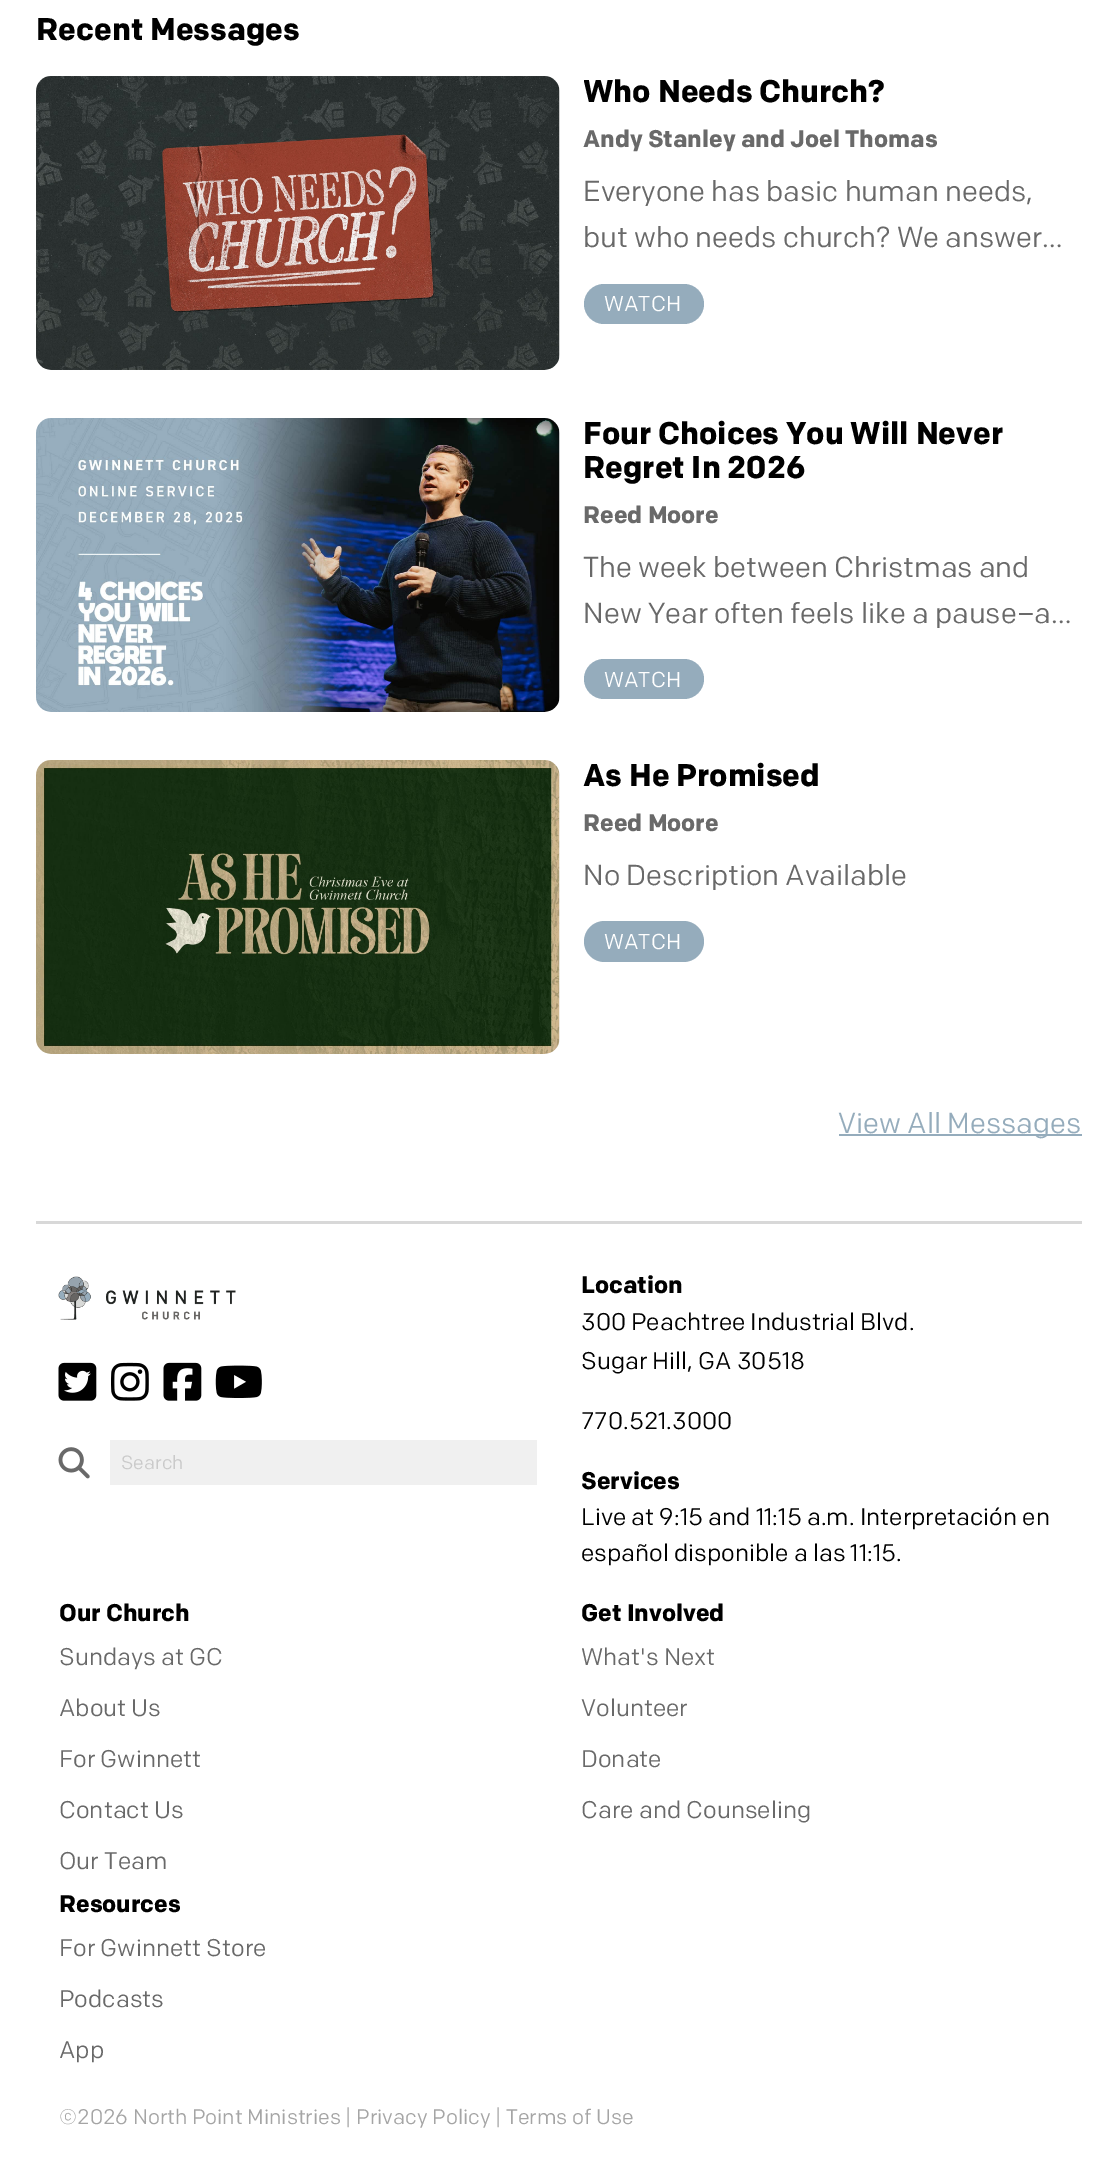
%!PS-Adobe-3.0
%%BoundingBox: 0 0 1117 2170
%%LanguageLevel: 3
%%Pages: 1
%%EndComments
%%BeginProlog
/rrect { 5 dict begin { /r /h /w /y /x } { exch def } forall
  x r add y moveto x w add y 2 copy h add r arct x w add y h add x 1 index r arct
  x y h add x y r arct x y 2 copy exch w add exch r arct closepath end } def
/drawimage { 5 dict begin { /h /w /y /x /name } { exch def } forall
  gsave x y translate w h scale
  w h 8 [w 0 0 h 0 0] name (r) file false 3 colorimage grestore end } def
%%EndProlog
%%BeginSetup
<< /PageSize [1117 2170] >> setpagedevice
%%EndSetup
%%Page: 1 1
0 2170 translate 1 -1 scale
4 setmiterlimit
1 setgray
0 0 1117 2170 rectfill
(images/1.raw) 36 76 524 294 drawimage
0.584 0.675 0.737 setrgbcolor
584 284 120 40 20 rrect fill
(images/2.raw) 36 418 524 294 drawimage
584 659 120 40 20 rrect fill
(images/3.raw) 36 760 524 294 drawimage
584 921 120 41 20.5 rrect fill
839 1134 243 2 rectfill
0.847 setgray
36 1221 1046 3 rectfill
(images/4.raw) 58 1276 178 44 drawimage
(images/5.raw) 58 1362 39 39 drawimage
(images/6.raw) 111 1362 38 39 drawimage
(images/7.raw) 163 1362 39 39 drawimage
(images/8.raw) 215 1365 47 33 drawimage
(images/9.raw) 58 1447 32 32 drawimage
0.941 setgray
110 1440 427 45 rectfill
/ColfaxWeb-Bold [31.25 0 0 -31.25 0 0] selectfont
0 setgray
36 40 moveto (Recent Messages) show
gsave
584 77 498 34 rectclip
583 102 moveto (Who Needs Church?) show
grestore
/ColfaxWeb-Bold [24 0 0 -24 0 0] selectfont
0.412 setgray
583 147 moveto (Andy Stanley and Joel Thomas) show
/ColfaxWeb-Regular [28.75 0 0 -28.75 0 0] selectfont
583 201 moveto (Everyone has basic human needs,) show
583 247 moveto (but who needs church? We answer…) show
/ColfaxWeb-Regular [21.5 0 0 -21.5 0 0] selectfont
1 setgray
604 311 moveto (WATCH) show
/ColfaxWeb-Bold [31.25 0 0 -31.25 0 0] selectfont
0 setgray
583 444 moveto (Four Choices You Will Never) show
583 478 moveto (Regret In 2026) show
/ColfaxWeb-Bold [24 0 0 -24 0 0] selectfont
0.412 setgray
583 523 moveto (Reed Moore) show
/ColfaxWeb-Regular [28.75 0 0 -28.75 0 0] selectfont
583 577 moveto (The week between Christmas and) show
583 623 moveto (New Year often feels like a pause–a…) show
/ColfaxWeb-Regular [21.5 0 0 -21.5 0 0] selectfont
1 setgray
604 687 moveto (WATCH) show
/ColfaxWeb-Bold [31.25 0 0 -31.25 0 0] selectfont
0 setgray
583 786 moveto (As He Promised) show
/ColfaxWeb-Bold [24 0 0 -24 0 0] selectfont
0.412 setgray
583 831 moveto (Reed Moore) show
/ColfaxWeb-Regular [28.75 0 0 -28.75 0 0] selectfont
583 885 moveto (No Description Available) show
/ColfaxWeb-Regular [21.5 0 0 -21.5 0 0] selectfont
1 setgray
604 949 moveto (WATCH) show
/ColfaxWeb-Regular [28.75 0 0 -28.75 0 0] selectfont
0.584 0.675 0.737 setrgbcolor
838 1133 moveto (View All Messages) show
/ColfaxWeb-Regular [19 0 0 -19 0 0] selectfont
0.792 setgray
121 1469 moveto (Search) show
/ColfaxWeb-Bold [24 0 0 -24 0 0] selectfont
0 setgray
581 1293 moveto (Location) show
/ColfaxWeb-Regular [24 0 0 -24 0 0] selectfont
581 1330 moveto (300 Peachtree Industrial Blvd.) show
581 1369 moveto (Sugar Hill, GA 30518) show
581 1429 moveto (770.521.3000) show
/ColfaxWeb-Bold [24 0 0 -24 0 0] selectfont
581 1489 moveto (Services) show
/ColfaxWeb-Regular [24 0 0 -24 0 0] selectfont
581 1525 moveto (Live at 9:15 and 11:15 a.m. Interpretación en) show
581 1561 moveto (español disponible a las 11:15.) show
/ColfaxWeb-Bold [24 0 0 -24 0 0] selectfont
59 1621 moveto (Our Church) show
/ColfaxWeb-Regular [24 0 0 -24 0 0] selectfont
0.412 setgray
59 1665 moveto (Sundays at GC) show
59 1716 moveto (About Us) show
59 1767 moveto (For Gwinnett) show
59 1818 moveto (Contact Us) show
59 1869 moveto (Our Team) show
/ColfaxWeb-Bold [24 0 0 -24 0 0] selectfont
0 setgray
581 1621 moveto (Get Involved) show
/ColfaxWeb-Regular [24 0 0 -24 0 0] selectfont
0.412 setgray
581 1665 moveto (What's Next) show
581 1716 moveto (Volunteer) show
581 1767 moveto (Donate) show
581 1818 moveto (Care and Counseling) show
/ColfaxWeb-Bold [24 0 0 -24 0 0] selectfont
0 setgray
59 1912 moveto (Resources) show
/ColfaxWeb-Regular [24 0 0 -24 0 0] selectfont
0.412 setgray
59 1956 moveto (For Gwinnett Store) show
59 2007 moveto (Podcasts) show
59 2058 moveto (App) show
/ColfaxWeb-Regular [21 0 0 -21 0 0] selectfont
0.647 setgray
59 2124 moveto (©2026 North Point Ministries | Privacy Policy | Terms of Use) show
showpage
%%EOF
